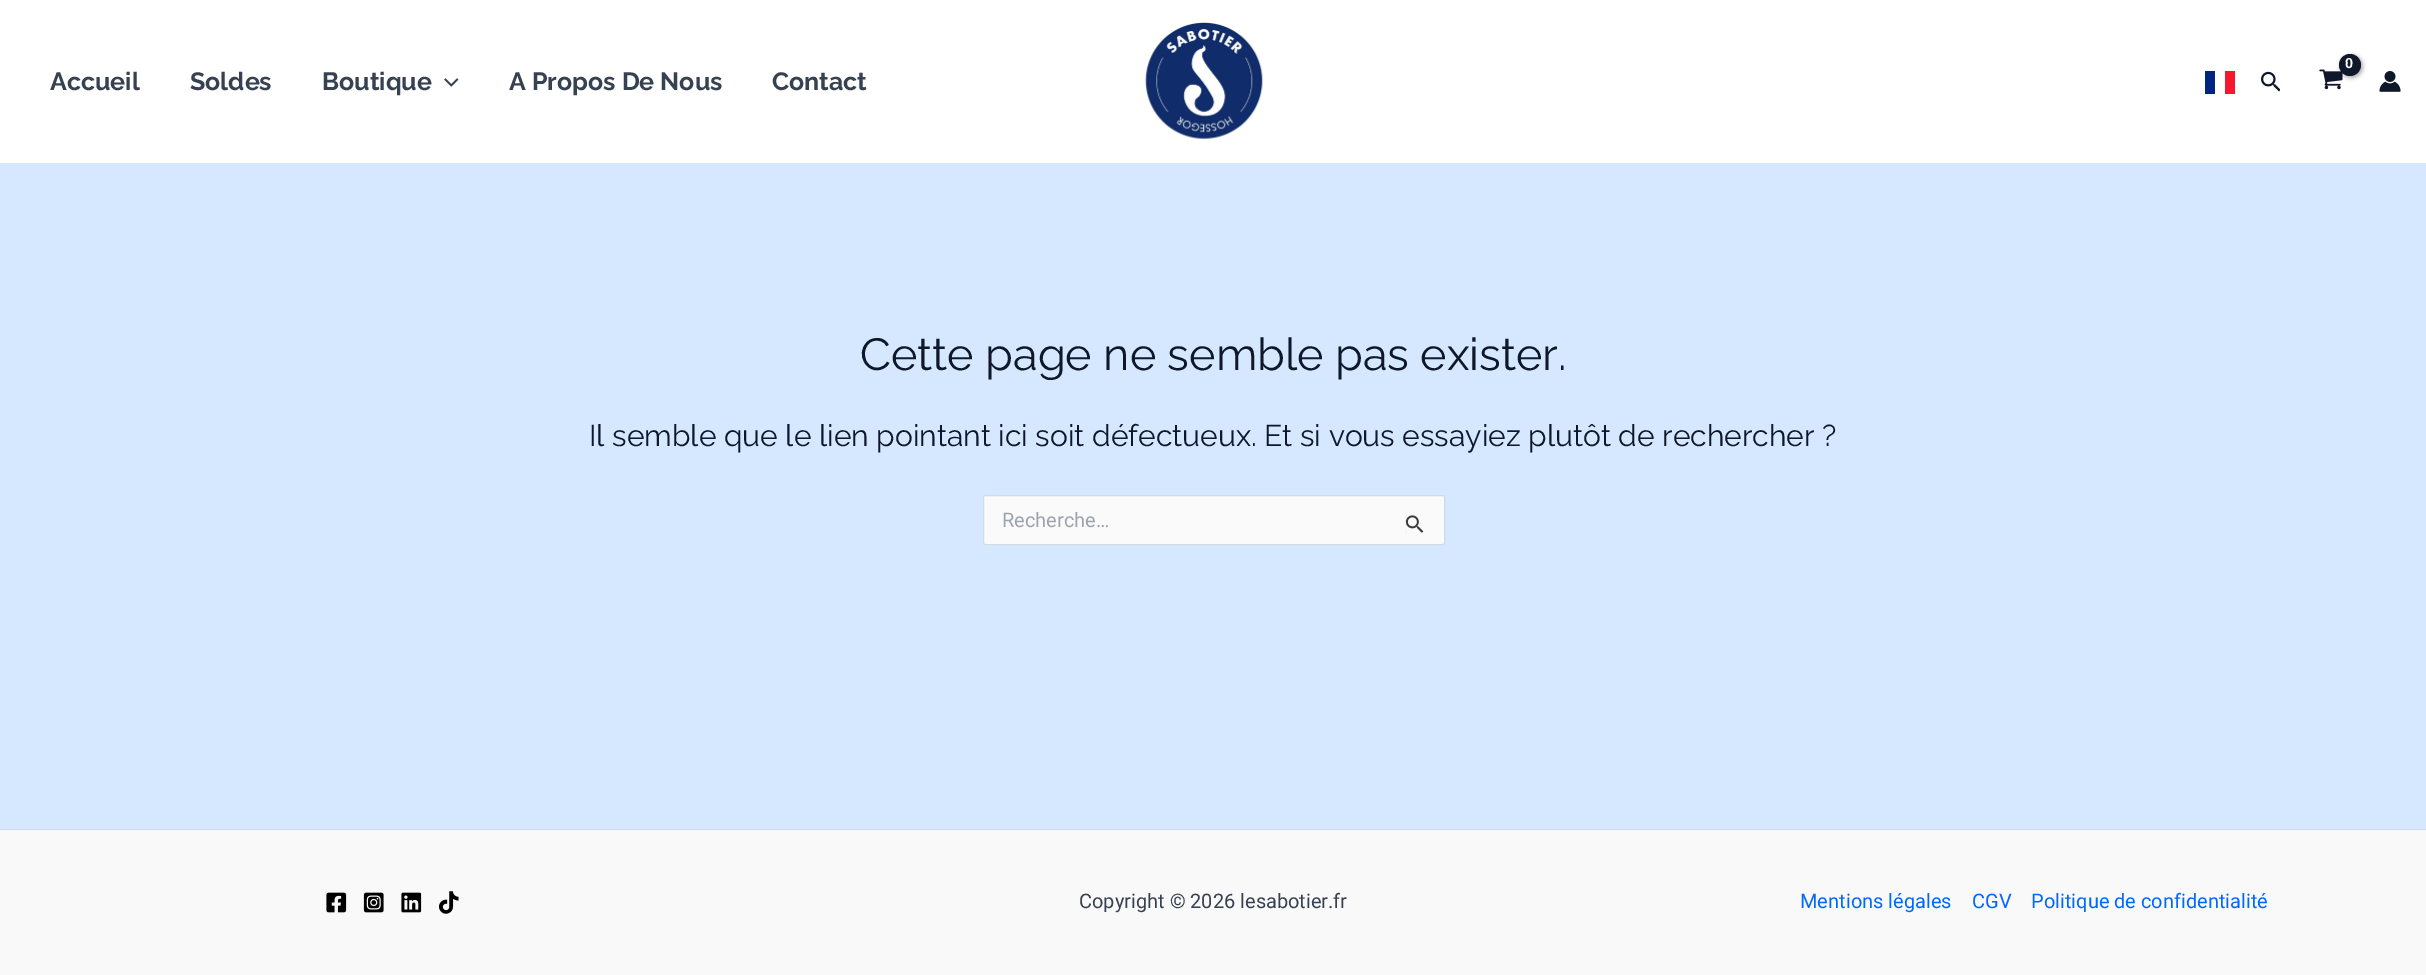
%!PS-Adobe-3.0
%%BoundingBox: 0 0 2426 975
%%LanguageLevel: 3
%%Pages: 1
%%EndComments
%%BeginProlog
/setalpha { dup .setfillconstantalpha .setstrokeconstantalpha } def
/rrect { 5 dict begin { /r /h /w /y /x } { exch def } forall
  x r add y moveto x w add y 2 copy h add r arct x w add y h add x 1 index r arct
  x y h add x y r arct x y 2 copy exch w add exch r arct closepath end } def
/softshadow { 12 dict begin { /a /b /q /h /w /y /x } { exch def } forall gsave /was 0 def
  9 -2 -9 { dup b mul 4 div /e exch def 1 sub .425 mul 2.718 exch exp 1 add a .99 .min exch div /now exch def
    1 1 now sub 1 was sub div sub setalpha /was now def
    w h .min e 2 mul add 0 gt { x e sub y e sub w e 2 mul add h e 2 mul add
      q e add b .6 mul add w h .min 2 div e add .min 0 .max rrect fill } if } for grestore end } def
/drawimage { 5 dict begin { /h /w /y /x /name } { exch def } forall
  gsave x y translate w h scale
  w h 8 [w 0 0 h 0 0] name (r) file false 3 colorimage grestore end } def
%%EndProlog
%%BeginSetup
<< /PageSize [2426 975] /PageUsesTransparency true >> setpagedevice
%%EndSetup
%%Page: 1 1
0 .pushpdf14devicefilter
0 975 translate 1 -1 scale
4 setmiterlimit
0.835 0.91 1 setrgbcolor
0 0 2426 975 rectfill
1 setgray
0 0 2426 163 rectfill
(images/1.raw) 1145 22 118 118 drawimage
(images/2.raw) 2319 69 24 21 drawimage
0 setgray
2340 55 23 23 11.5 2 0.3 softshadow
0.059 0.09 0.165 setrgbcolor
newpath 2350 65 11 0 360 arc closepath fill
0 0.149 0.498 setrgbcolor
2205 71 10 23 rectfill
0.953 0.094 0.188 setrgbcolor
2225 71 10 23 rectfill
(images/3.raw) 2261 71 19 21 drawimage
(images/4.raw) 2379 71 22 21 drawimage
(images/5.raw) 444 78 15 9 drawimage
0.98 setgray
983.5 495.5 461 49 2 rrect gsave fill grestore
0.82 0.855 0.898 setrgbcolor
stroke
(images/6.raw) 1405 515 19 18 drawimage
0.976 setgray
0 830 2426 145 rectfill
0.82 0.855 0.898 setrgbcolor
0 829 2426 1 rectfill
(images/7.raw) 326 892 21 21 drawimage
(images/8.raw) 363 892 21 21 drawimage
(images/9.raw) 401 892 21 21 drawimage
(images/10.raw) 439 891 20 23 drawimage
/Roboto-Bold [14 0 0 -14 0 0] selectfont
1 setgray
2345 68 moveto -1 0 (0) ashow
/Raleway-Bold [25 0 0 -25 0 0] selectfont
0.212 0.255 0.318 setrgbcolor
50 90 moveto (Accueil) show
190 90 moveto (Soldes) show
322 90 moveto (Boutique) show
509 90 moveto (A Propos De Nous) show
772 90 moveto (Contact) show
/Raleway-Regular [45 0 0 -45 0 0] selectfont
0.059 0.09 0.165 setrgbcolor
860 370 moveto (Cette page ne semble pas exister.) show
/Raleway-Regular [30 0 0 -30 0 0] selectfont
589 446 moveto (Il semble que le lien pointant ici soit défectueux. Et si vous essayiez plutôt de rechercher ?) show
/Roboto-Regular [20 0 0 -20 0 0] selectfont
0.612 0.639 0.686 setrgbcolor
1002 527 moveto (Recherche…) show
0.212 0.255 0.318 setrgbcolor
1079 908 moveto (Copyright © 2026 lesabotier.fr) show
0 0.404 1 setrgbcolor
1800 908 moveto (Mentions légales) show
1972 908 moveto (CGV) show
2031 908 moveto (Politique de confidentialité) show
.poppdf14devicefilter showpage
%%EOF
